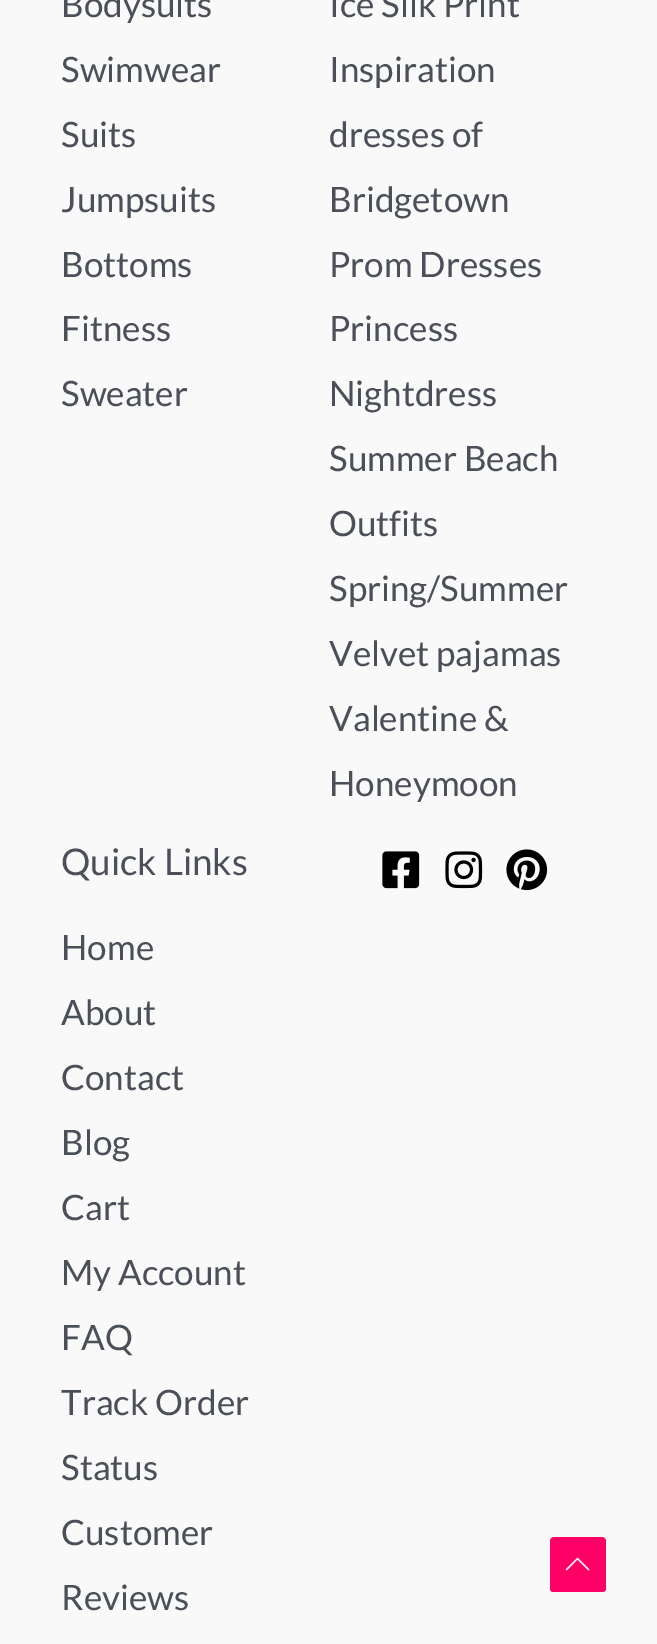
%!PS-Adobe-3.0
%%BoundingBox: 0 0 657 1644
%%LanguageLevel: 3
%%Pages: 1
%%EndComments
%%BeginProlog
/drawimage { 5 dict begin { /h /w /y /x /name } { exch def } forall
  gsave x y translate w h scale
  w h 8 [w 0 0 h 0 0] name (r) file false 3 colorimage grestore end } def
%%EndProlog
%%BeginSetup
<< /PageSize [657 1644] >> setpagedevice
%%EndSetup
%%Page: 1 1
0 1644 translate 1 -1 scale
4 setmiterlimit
0.976 setgray
0 0 657 1644 rectfill
(images/1.raw) 382 851 38 38 drawimage
(images/2.raw) 445 851 38 38 drawimage
(images/3.raw) 506 849 42 42 drawimage
1 0 0.4 setrgbcolor
newpath 602 1592 moveto 554 1592 lineto 552 1592 550 1591 550 1589 curveto 550 1541 lineto 550 1539 552 1537 554 1537 curveto 602 1537 lineto 604 1537 606 1539 606 1541 curveto 606 1589 lineto 606 1591 604 1592 602 1592 curveto closepath fill
(images/4.raw) 565 1557 25 14 drawimage
/Lato-Regular [35 0 0 -35 0 0] selectfont
0.294 0.31 0.345 setrgbcolor
61 17 moveto (Bodysuits) show
61 82 moveto (Swimwear) show
61 147 moveto (Suits) show
61 212 moveto (Jumpsuits) show
61 277 moveto (Bottoms) show
61 341 moveto (Fitness) show
61 406 moveto (Sweater) show
329 17 moveto (Ice Silk Print) show
329 82 moveto (Inspiration) show
329 147 moveto (dresses of) show
329 212 moveto (Bridgetown) show
329 277 moveto (Prom Dresses) show
329 341 moveto (Princess) show
329 406 moveto (Nightdress) show
329 471 moveto (Summer Beach) show
329 536 moveto (Outfits) show
329 601 moveto (Spring/Summer) show
329 666 moveto (Velvet pajamas) show
329 731 moveto (Valentine &) show
329 796 moveto (Honeymoon) show
/Lato-Regular [36.75 0 0 -36.75 0 0] selectfont
61 875 moveto (Quick Links) show
/Lato-Regular [35 0 0 -35 0 0] selectfont
61 960 moveto (Home) show
61 1025 moveto (About) show
61 1090 moveto (Contact) show
61 1155 moveto (Blog) show
61 1220 moveto (Cart) show
61 1285 moveto (My Account) show
61 1350 moveto (FAQ) show
61 1415 moveto (Track Order) show
61 1480 moveto (Status) show
61 1545 moveto (Customer) show
61 1610 moveto (Reviews) show
showpage
%%EOF
